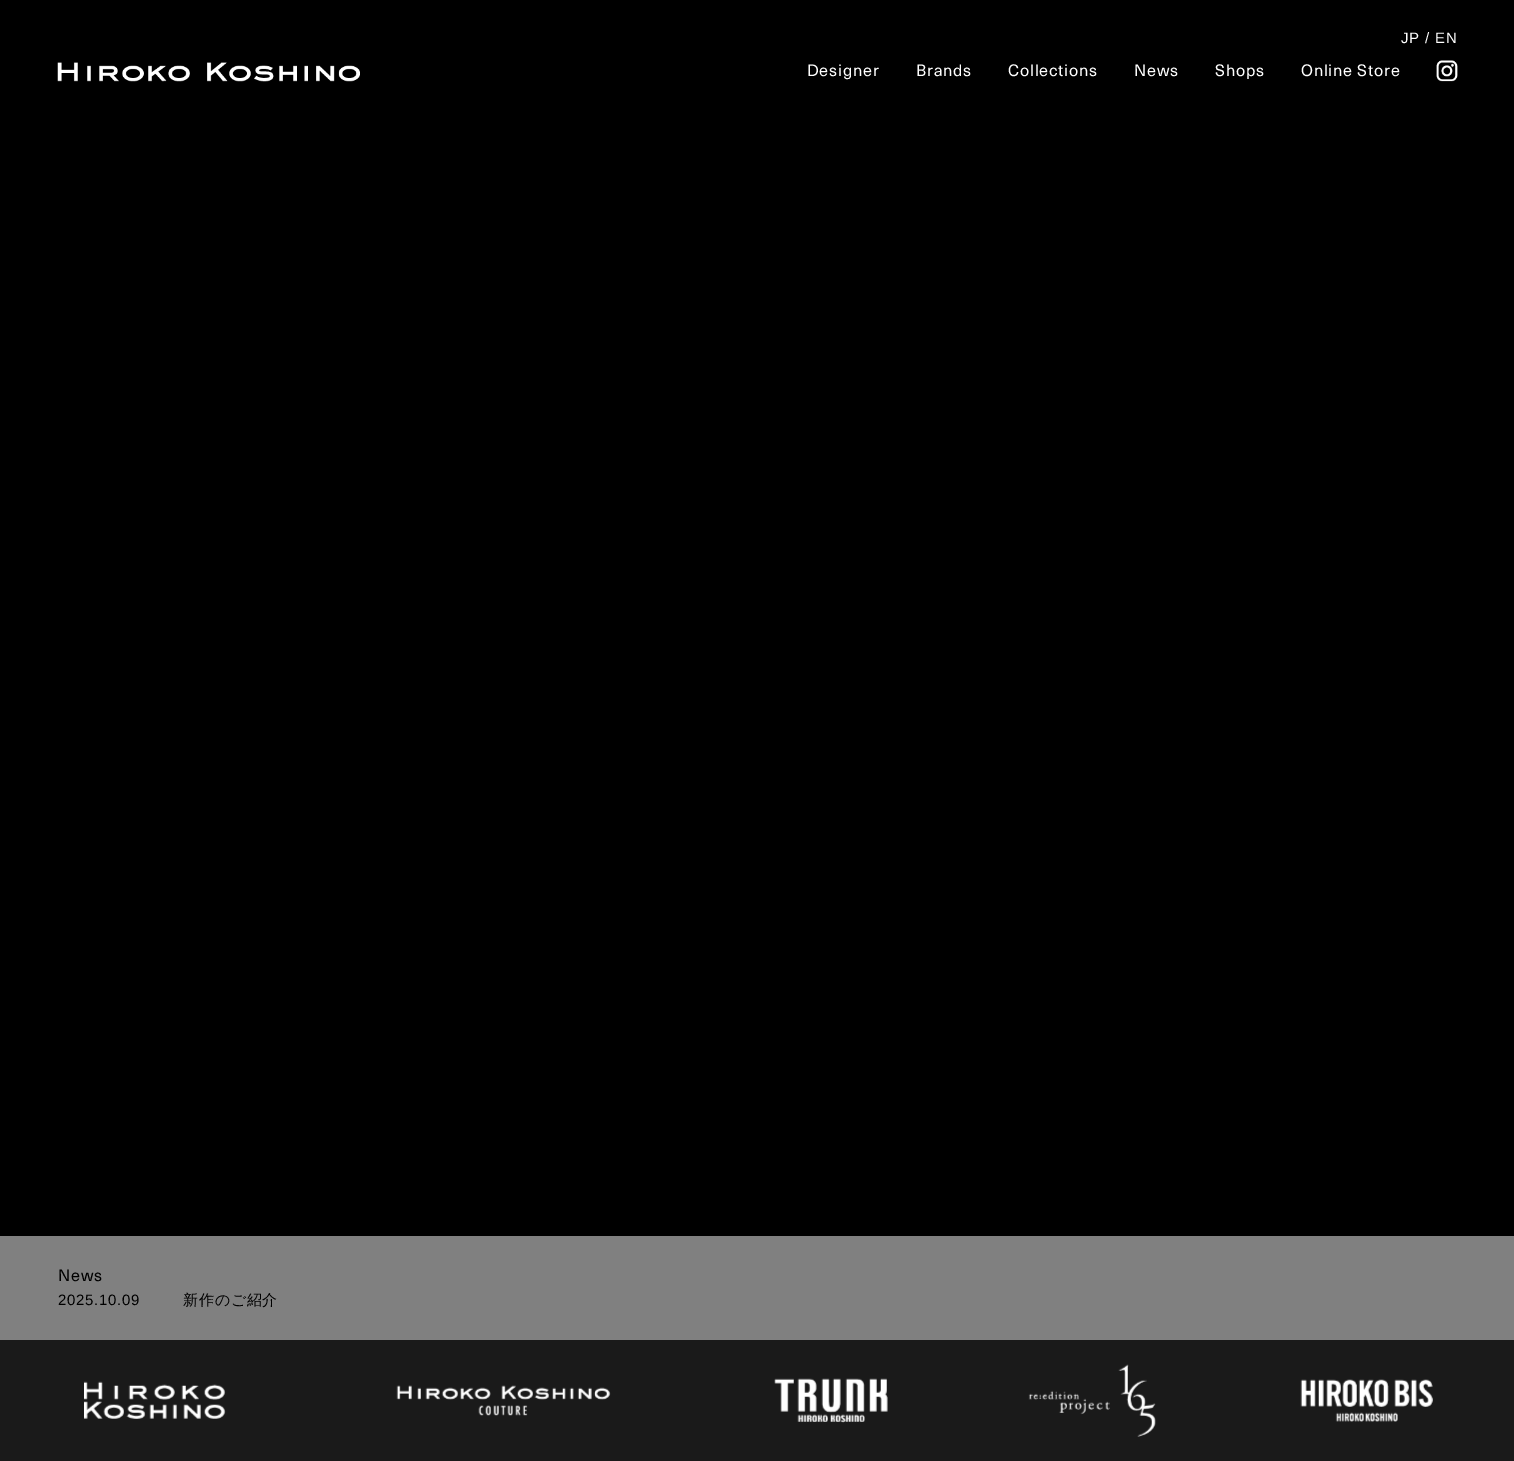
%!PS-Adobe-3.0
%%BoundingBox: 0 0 1514 1461
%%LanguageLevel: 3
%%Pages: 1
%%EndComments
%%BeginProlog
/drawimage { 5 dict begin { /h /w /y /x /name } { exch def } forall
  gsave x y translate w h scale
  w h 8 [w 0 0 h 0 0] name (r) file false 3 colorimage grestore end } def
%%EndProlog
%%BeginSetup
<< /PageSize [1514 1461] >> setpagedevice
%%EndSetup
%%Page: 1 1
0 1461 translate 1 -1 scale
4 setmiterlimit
0 setgray
0 0 1514 1461 rectfill
(images/1.raw) 57 62 303 20 drawimage
(images/2.raw) 1436 60 22 22 drawimage
0.502 setgray
0 1236 1514 104 rectfill
0.102 setgray
0 1340 1514 121 rectfill
(images/3.raw) 84 1381 142 38 drawimage
(images/4.raw) 396 1385 215 31 drawimage
(images/5.raw) 774 1378 114 45 drawimage
(images/6.raw) 1028 1364 128 73 drawimage
(images/7.raw) 1300 1379 133 43 drawimage
/LiberationSans-Regular [15 0 0 -15 0 0] selectfont
1 setgray
1401 43 moveto 0.75 0 (JP / EN) ashow
/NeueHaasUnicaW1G-Regular [16.25 0 0 -16.25 0 0] selectfont
807 76 moveto 0.75 0 (Designer) ashow
916 76 moveto 0.75 0 (Brands) ashow
1008 76 moveto 0.75 0 (Collections) ashow
1134 76 moveto 0.75 0 (News) ashow
1215 76 moveto 0.75 0 (Shops) ashow
1301 76 moveto 0.75 0 (Online Store) ashow
0 setgray
58 1281 moveto 0.75 0 (News) ashow
/LiberationSans-Regular [15 0 0 -15 0 0] selectfont
58 1305 moveto 0.75 0 (2025.10.09) ashow
/WenQuanYiZenHei-Medium [15 0 0 -15 0 0] selectfont
183 1305 moveto 0.75 0 (新作のご紹介) ashow
showpage
%%EOF
